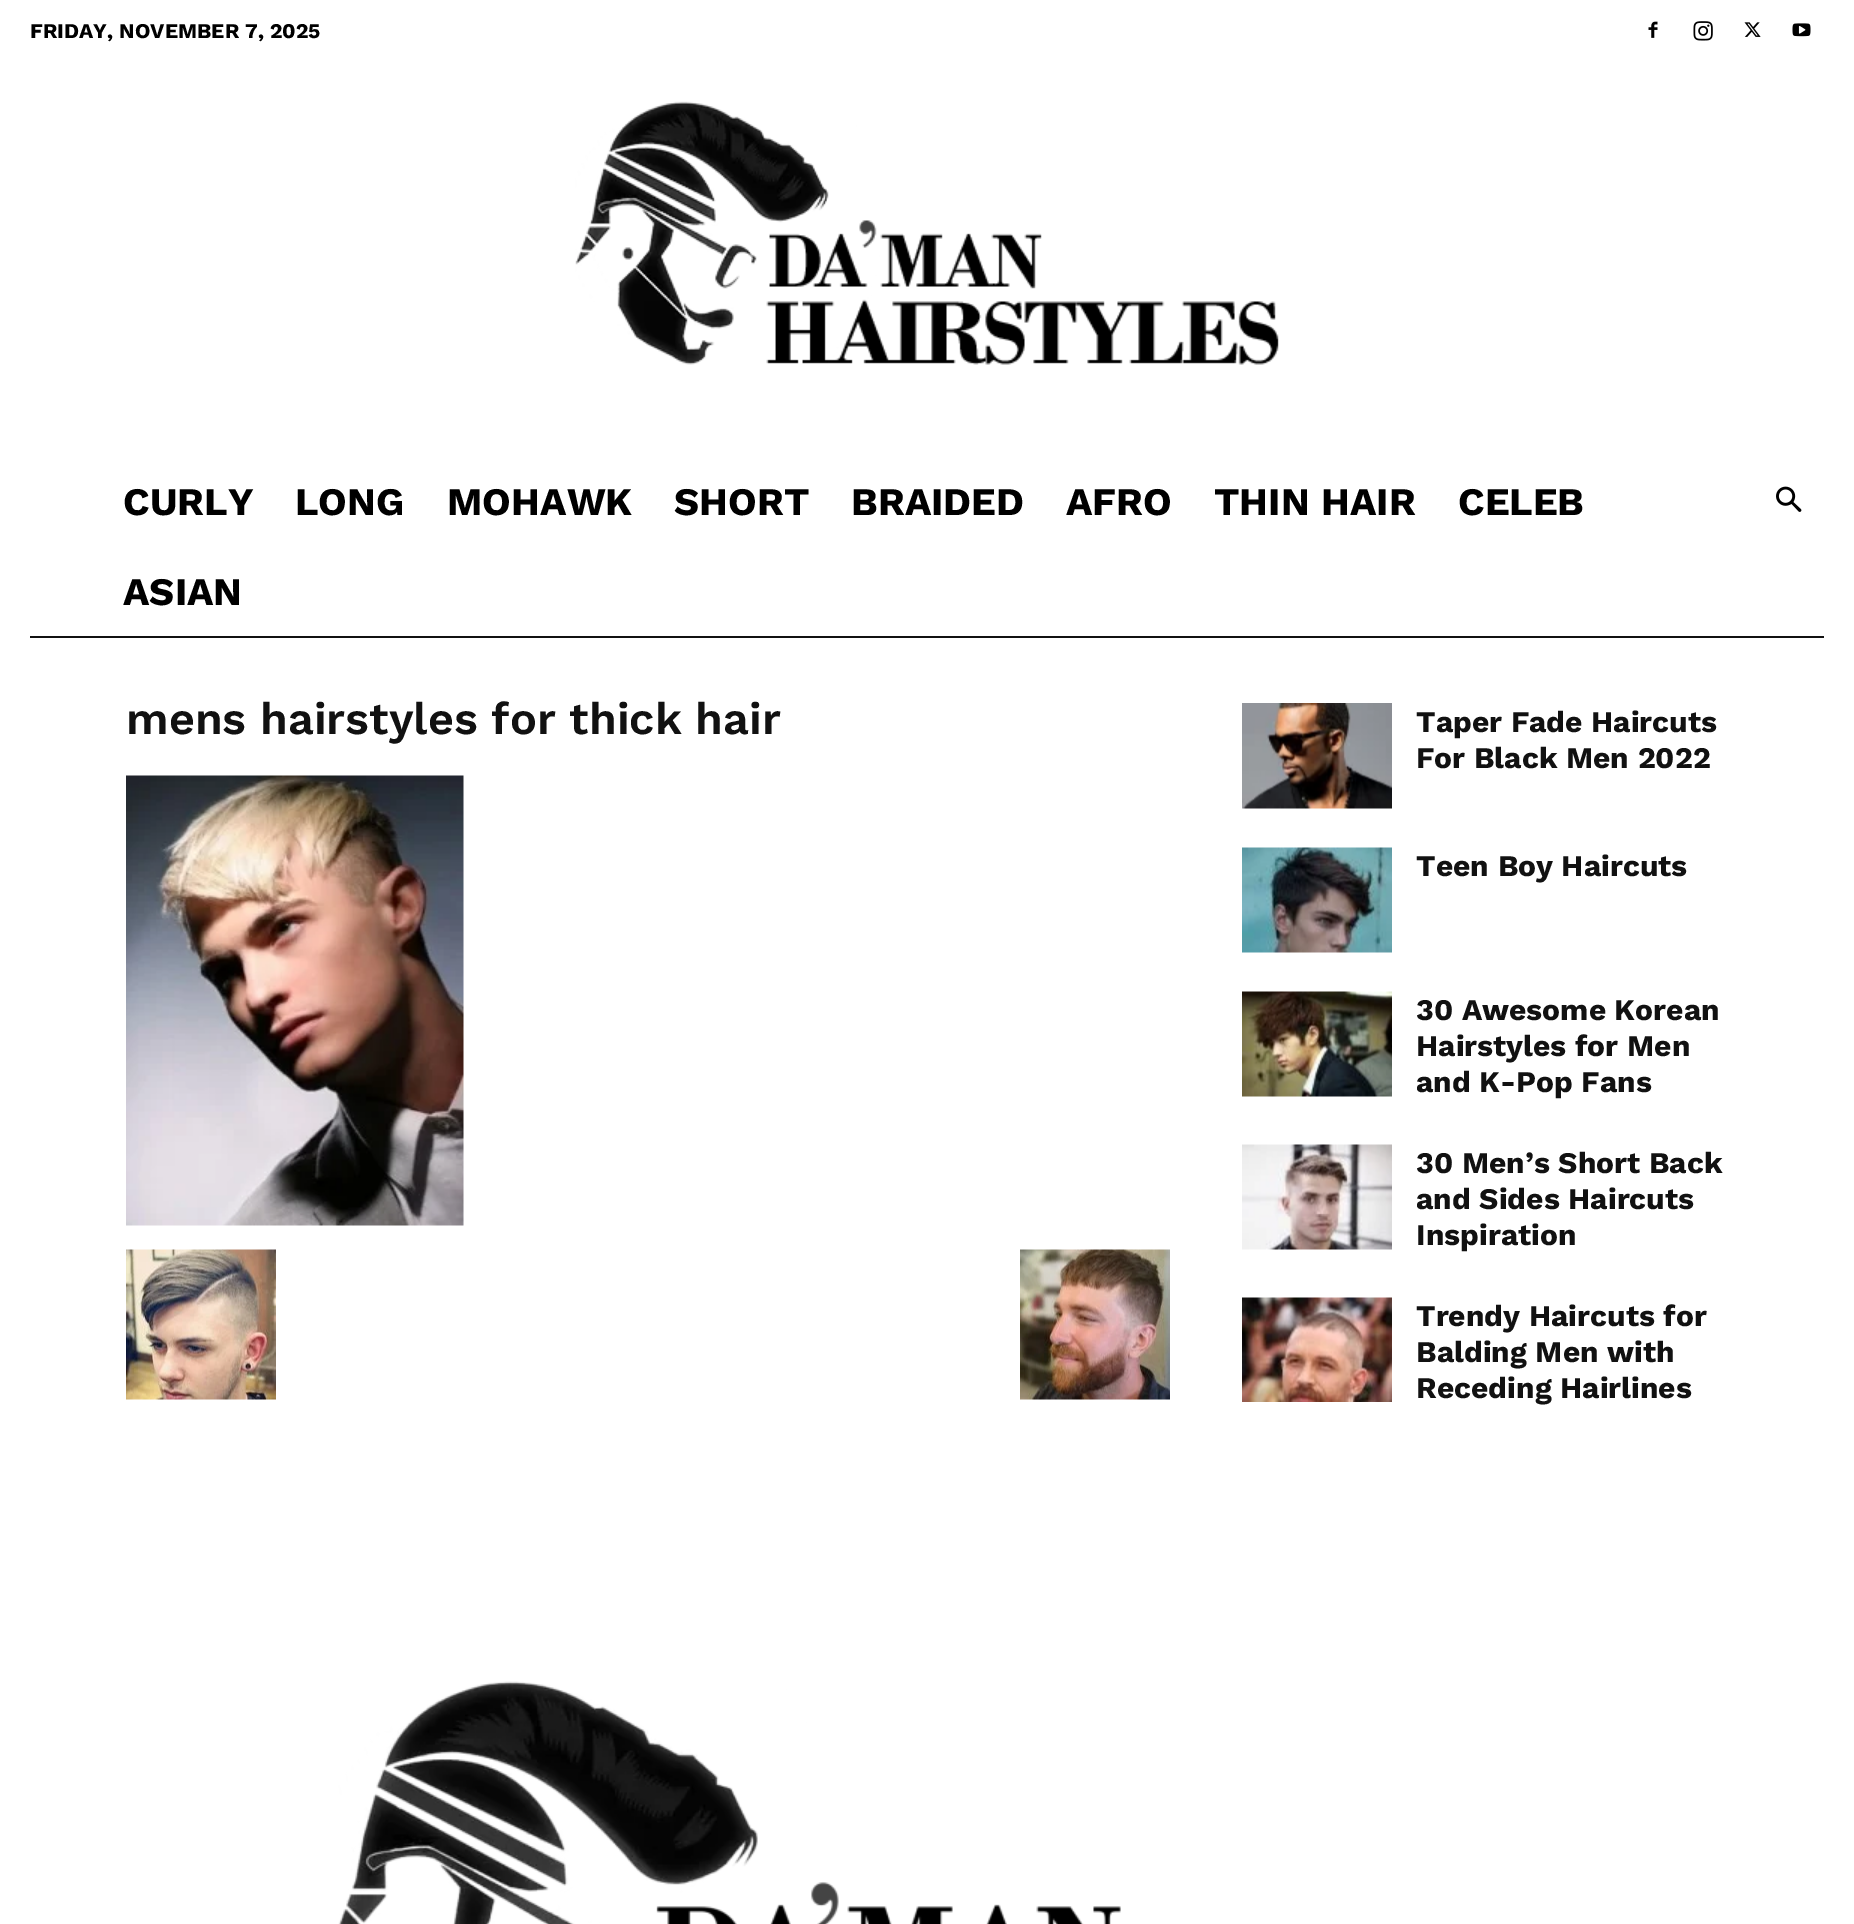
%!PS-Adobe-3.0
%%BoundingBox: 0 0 1854 1924
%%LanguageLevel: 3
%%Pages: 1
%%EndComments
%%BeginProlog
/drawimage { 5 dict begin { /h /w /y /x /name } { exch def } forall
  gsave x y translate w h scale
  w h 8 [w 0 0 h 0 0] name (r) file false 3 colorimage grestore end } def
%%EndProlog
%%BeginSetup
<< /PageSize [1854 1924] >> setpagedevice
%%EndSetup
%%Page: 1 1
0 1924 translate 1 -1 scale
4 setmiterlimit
1 setgray
0 0 1854 1924 rectfill
(images/1.raw) 1648 21 10 17 drawimage
(images/2.raw) 1693 21 20 20 drawimage
(images/3.raw) 1744 22 17 15 drawimage
(images/4.raw) 1792 23 19 14 drawimage
(images/5.raw) 575 101 704 264 drawimage
0.067 setgray
30 636 1794 2 rectfill
(images/6.raw) 1776 486 26 26 drawimage
(images/7.raw) 126 775 338 451 drawimage
(images/8.raw) 126 1249 150 151 drawimage
(images/9.raw) 1020 1249 150 151 drawimage
(images/10.raw) 1242 703 150 106 drawimage
(images/11.raw) 1242 847 150 106 drawimage
(images/12.raw) 1242 991 150 106 drawimage
(images/13.raw) 1242 1144 150 106 drawimage
(images/14.raw) 1242 1297 150 105 drawimage
(images/15.raw) 338 1681 783 243 drawimage
/WorkSans-Bold [21 0 0 -21 0 0] selectfont
0 setgray
30 38 moveto (FRIDAY, NOVEMBER 7, 2025) show
/WorkSans-Bold [39 0 0 -39 0 0] selectfont
123 515 moveto (CURLY) show
295 515 moveto (LONG) show
447 515 moveto (MOHAWK) show
674 515 moveto (SHORT) show
851 515 moveto (BRAIDED) show
1066 515 moveto (AFRO) show
1214 515 moveto (THIN HAIR) show
1458 515 moveto (CELEB) show
123 605 moveto (ASIAN) show
/WorkSans-SemiBold [45 0 0 -45 0 0] selectfont
0.067 setgray
126 734 moveto (mens hairstyles for thick hair) show
/WorkSans-Bold [30 0 0 -30 0 0] selectfont
1416 732 moveto (Taper Fade Haircuts) show
1416 768 moveto (For Black Men 2022) show
1416 876 moveto (Teen Boy Haircuts) show
1416 1020 moveto (30 Awesome Korean) show
1416 1056 moveto (Hairstyles for Men) show
1416 1092 moveto (and K-Pop Fans) show
1416 1173 moveto (30 Men’s Short Back) show
1416 1209 moveto (and Sides Haircuts) show
1416 1245 moveto (Inspiration) show
1416 1326 moveto (Trendy Haircuts for) show
1416 1362 moveto (Balding Men with) show
1416 1398 moveto (Receding Hairlines) show
showpage
%%EOF
